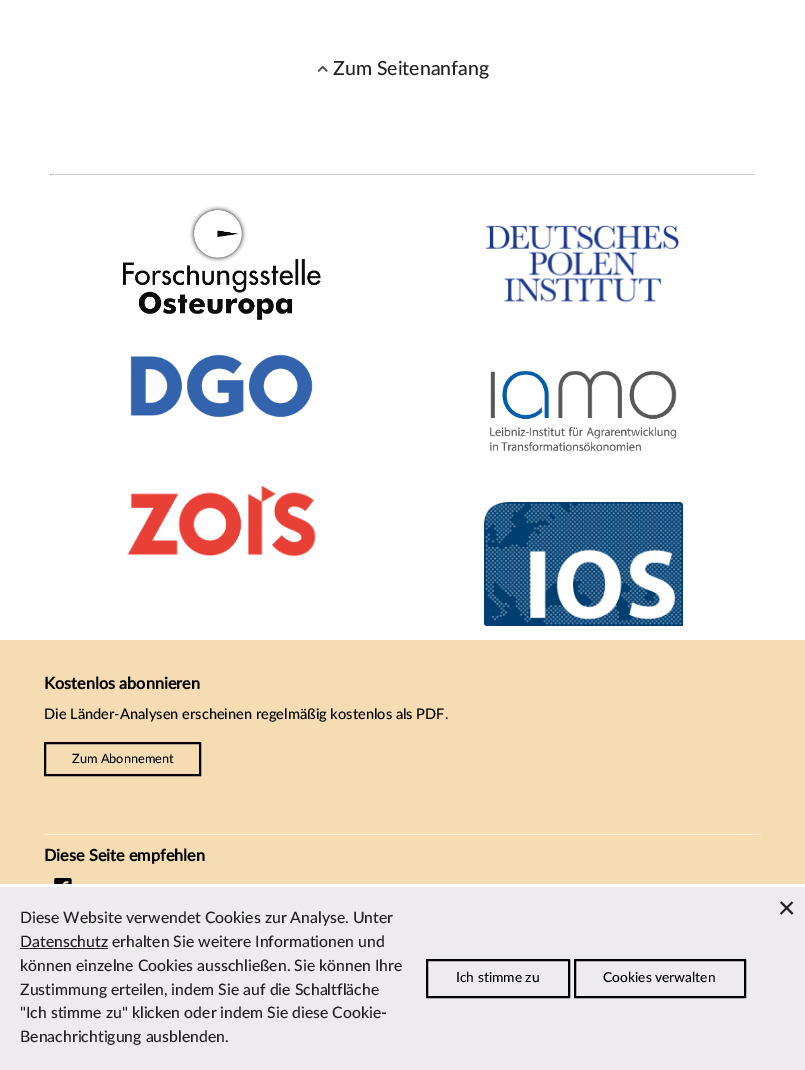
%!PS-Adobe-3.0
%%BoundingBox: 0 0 805 1070
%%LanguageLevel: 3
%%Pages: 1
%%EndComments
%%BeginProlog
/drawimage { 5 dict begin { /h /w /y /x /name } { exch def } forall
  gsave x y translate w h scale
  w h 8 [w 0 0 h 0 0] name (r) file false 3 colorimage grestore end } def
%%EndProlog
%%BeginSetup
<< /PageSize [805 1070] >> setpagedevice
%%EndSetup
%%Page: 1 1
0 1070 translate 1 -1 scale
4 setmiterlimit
1 setgray
0 0 805 1070 rectfill
(images/1.raw) 317 65 11 7 drawimage
0.8 setgray
50 174 705 1 rectfill
0.933 setgray
754 174 1 1 rectfill
0.624 setgray
50 174 1 1 rectfill
(images/2.raw) 123 206 198 114 drawimage
(images/3.raw) 486 225 194 78 drawimage
(images/4.raw) 130 354 183 64 drawimage
(images/5.raw) 490 370 187 82 drawimage
(images/6.raw) 127 486 189 71 drawimage
(images/7.raw) 484 502 199 124 drawimage
0.961 0.863 0.698 setrgbcolor
0 640 805 244 rectfill
0 setgray
2 setlinewidth
45 743 155 32 rectstroke
0.98 0.933 0.851 setrgbcolor
44 834 717 1 rectfill
(images/8.raw) 54 878 18 6 drawimage
0.929 0.922 0.933 setrgbcolor
0 887 805 183 rectfill
0.133 setgray
20 948 88 1 rectfill
0 setgray
427 960 142 37 rectstroke
575 960 170 37 rectstroke
/Lato-Medium [19.5 0 0 -19.5 0 0] selectfont
0.133 setgray
333 75 moveto (Zum Seitenanfang) show
/Lato-Bold [16.25 0 0 -16.25 0 0] selectfont
0 setgray
44 689 moveto (Kostenlos abonnieren) show
/Lato-Medium [14.6 0 0 -14.6 0 0] selectfont
44 719 moveto (Die Länder-Analysen erscheinen regelmäßig kostenlos als PDF.) show
/Lato-Medium [12.75 0 0 -12.75 0 0] selectfont
72 763 moveto (Zum Abonnement) show
/Lato-Bold [16.25 0 0 -16.25 0 0] selectfont
44 861 moveto (Diese Seite empfehlen) show
/Lato-Medium [30 0 0 -30 0 0] selectfont
0.133 setgray
778 918 moveto (×) show
/Lato-Medium [15.8 0 0 -15.8 0 0] selectfont
20 923 moveto (Diese Website verwendet Cookies zur Analyse. Unter) show
20 947 moveto (Datenschutz erhalten Sie weitere Informationen und) show
20 971 moveto (können einzelne Cookies ausschließen. Sie können Ihre) show
20 995 moveto (Zustimmung erteilen, indem Sie auf die Schaltfläche) show
20 1018 moveto ("Ich stimme zu" klicken oder indem Sie diese Cookie-) show
20 1042 moveto (Benachrichtigung ausblenden.) show
/Lato-Medium [13.75 0 0 -13.75 0 0] selectfont
0 setgray
456 982 moveto (Ich stimme zu) show
603 982 moveto (Cookies verwalten) show
showpage
%%EOF
